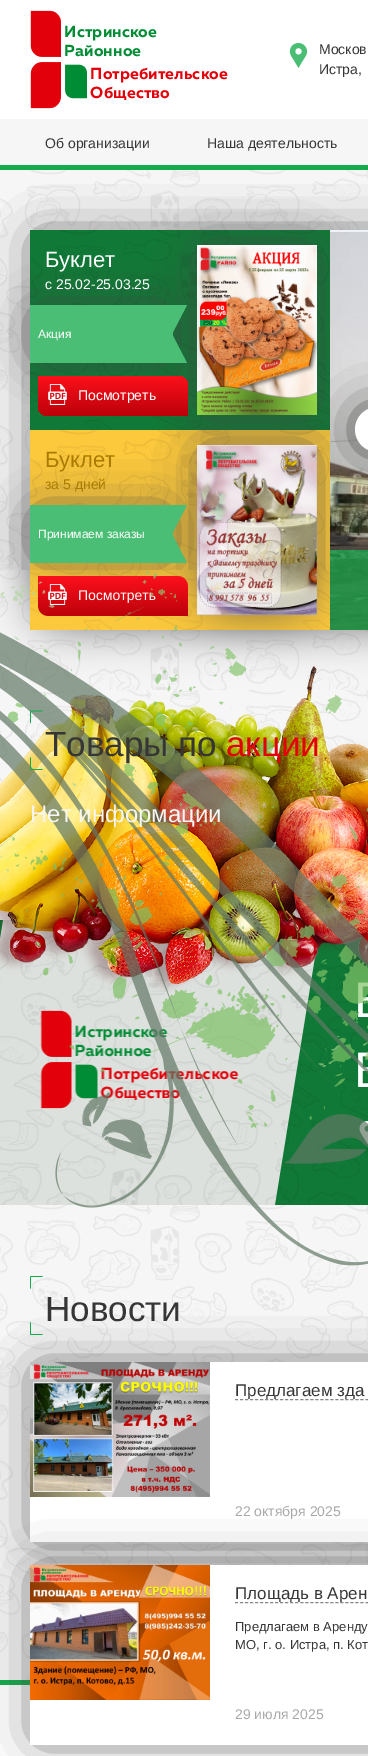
%!PS-Adobe-3.0
%%BoundingBox: 0 0 368 1756
%%LanguageLevel: 3
%%Pages: 1
%%EndComments
%%BeginProlog
/setalpha { dup .setfillconstantalpha .setstrokeconstantalpha } def
/rrect { 5 dict begin { /r /h /w /y /x } { exch def } forall
  x r add y moveto x w add y 2 copy h add r arct x w add y h add x 1 index r arct
  x y h add x y r arct x y 2 copy exch w add exch r arct closepath end } def
/softshadow { 12 dict begin { /a /b /q /h /w /y /x } { exch def } forall gsave /was 0 def
  9 -2 -9 { dup b mul 4 div /e exch def 1 sub .425 mul 2.718 exch exp 1 add a .99 .min exch div /now exch def
    1 1 now sub 1 was sub div sub setalpha /was now def
    w h .min e 2 mul add 0 gt { x e sub y e sub w e 2 mul add h e 2 mul add
      q e add b .6 mul add w h .min 2 div e add .min 0 .max rrect fill } if } for grestore end } def
/drawimage { 5 dict begin { /h /w /y /x /name } { exch def } forall
  gsave x y translate w h scale
  w h 8 [w 0 0 h 0 0] name (r) file false 3 colorimage grestore end } def
%%EndProlog
%%BeginSetup
<< /PageSize [368 1756] /PageUsesTransparency true >> setpagedevice
%%EndSetup
%%Page: 1 1
0 .pushpdf14devicefilter
0 1756 translate 1 -1 scale
4 setmiterlimit
1 setgray
0 0 368 1756 rectfill
(images/1.raw) 30 10 198 99 drawimage
(images/2.raw) 289 43 19 25 drawimage
0.965 setgray
0 119 368 46 rectfill
0.075 0.671 0.298 setrgbcolor
0 165 368 5 rectfill
0.965 setgray
0 170 368 520 rectfill
(images/3.raw) 0 170 368 520 drawimage
0.259 setgray
40 240 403 380 0 25 1 softshadow
0.063 0.475 0.216 setrgbcolor
30 230 300 200 rectfill
(images/4.raw) 30 230 300 200 drawimage
0.988 0.784 0.235 setrgbcolor
30 430 300 200 rectfill
(images/7.raw) 30 430 300 200 drawimage
0.259 setgray
207 255 100 150 0 25 1 softshadow
(images/6.raw) 197 245 120 170 drawimage
40 315 123 38 0 25 1 softshadow
0.286 0.745 0.455 setrgbcolor
30 305 143 58 rectfill
newpath 172 305 moveto 187 305 lineto 172 334 lineto closepath 187 363 moveto 172 363 lineto 172 334 lineto closepath fill
0.259 setgray
207 455 100 150 0 25 1 softshadow
gsave newpath 38 376 moveto 178 376 lineto 183.5 376 188 380.5 188 386 curveto 188 416 lineto 48 416 lineto 42.5 416 38 411.5 38 406 curveto closepath clip newpath
<< /ShadingType 2 /ColorSpace /DeviceRGB /Coords [113 416 113 376] /Extend [true true] /Function << /FunctionType 2 /Domain [0 1] /C0 [0.733 0.004 0.039] /C1 [0.988 0.063 0.106] /N 1 >> >> shfill grestore
(images/5.raw) 48 384 19 21 drawimage
(images/8.raw) 197 445 120 170 drawimage
40 515 123 38 0 25 1 softshadow
0.286 0.745 0.455 setrgbcolor
30 505 143 58 rectfill
newpath 172 505 moveto 187 505 lineto 172 534 lineto closepath 187 563 moveto 172 563 lineto 172 534 lineto closepath fill
gsave newpath 38 576 moveto 178 576 lineto 183.5 576 188 580.5 188 586 curveto 188 616 lineto 48 616 lineto 42.5 616 38 611.5 38 606 curveto closepath clip newpath
<< /ShadingType 2 /ColorSpace /DeviceRGB /Coords [113 616 113 576] /Extend [true true] /Function << /FunctionType 2 /Domain [0 1] /C0 [0.733 0.004 0.039] /C1 [0.988 0.063 0.106] /N 1 >> >> shfill grestore
(images/5.raw) 48 584 19 21 drawimage
(images/9.raw) 330 230 38 400 drawimage
0.7 setalpha
0.075 0.671 0.298 setrgbcolor
330 550 38 80 rectfill
gsave
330 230 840 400 rectclip
1 setalpha
0 setgray
365 417 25 25 12.5 25 1 softshadow
grestore
1 setalpha
1 setgray
355 407 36 45 22.5 rrect fill
0.965 setgray
0 690 368 230 rectfill
(images/11.raw) 0 690 368 158 drawimage
0.063 0.475 0.216 setrgbcolor
0 920 368 285 rectfill
(images/13.raw) 276 937 92 268 drawimage
0.867 0.882 0.867 setrgbcolor
newpath 3 920 moveto 321 920 lineto 275 1205 lineto -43 1205 lineto closepath fill
(images/14.raw) 0 929 313 276 drawimage
(images/12.raw) 0 666 368 325 drawimage
(images/15.raw) 40 1010 199 99 drawimage
(images/16.raw) 359 1121 9 23 drawimage
0.965 setgray
0 1205 368 475 rectfill
(images/17.raw) 0 1205 368 475 drawimage
0.075 0.671 0.298 setrgbcolor
0 1680 30 5 rectfill
newpath 30 1289 moveto 30 1276 lineto 31 1277 lineto 31 1288 lineto closepath fill
0.259 setgray
40 1372 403 160 0 25 1 softshadow
0.075 0.671 0.298 setrgbcolor
newpath 30 1276 moveto 43 1276 lineto 42 1277 lineto 31 1277 lineto closepath 43 1335 moveto 30 1335 lineto 31 1334 lineto 42 1334 lineto closepath fill
newpath 30 1335 moveto 30 1322 lineto 31 1323 lineto 31 1334 lineto closepath fill
1 setgray
30 1362 338 180 rectfill
(images/18.raw) 30 1362 180 135 drawimage
0.525 setgray
[3 2.02] 0 setdash
newpath 235 1399.5 moveto 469 1399.5 lineto stroke
0.259 setgray
40 1575 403 160 0 25 1 softshadow
1 setgray
30 1565 338 180 rectfill
(images/19.raw) 30 1565 180 135 drawimage
0.525 setgray
newpath 235 1602.5 moveto 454 1602.5 lineto stroke
/LiberationSans-Regular [14 0 0 -14 0 0] selectfont
0.212 setgray
319 54 moveto (Москов) show
319 74 moveto (Истра,) show
45 148 moveto (Об организации) show
207 148 moveto (Наша деятельность) show
/LiberationSans-Regular [22 0 0 -22 0 0] selectfont
1 setgray
45 267 moveto (Буклет) show
/LiberationSans-Regular [14 0 0 -14 0 0] selectfont
45 289 moveto (с 25.02-25.03.25) show
/LiberationSans-Regular [12 0 0 -12 0 0] selectfont
38 338 moveto (Акция) show
/LiberationSans-Regular [14 0 0 -14 0 0] selectfont
78 400 moveto (Посмотреть) show
/LiberationSans-Regular [22 0 0 -22 0 0] selectfont
0.663 0.482 0 setrgbcolor
45 467 moveto (Буклет) show
/LiberationSans-Regular [14 0 0 -14 0 0] selectfont
45 489 moveto (за 5 дней) show
/LiberationSans-Regular [12 0 0 -12 0 0] selectfont
1 setgray
38 538 moveto (Принимаем заказы) show
/LiberationSans-Regular [14 0 0 -14 0 0] selectfont
78 600 moveto (Посмотреть) show
(images/10.raw) 0 570 368 696 drawimage
0.075 0.671 0.298 setrgbcolor
newpath 30 723.5 moveto 30 710.5 lineto 31 711.5 lineto 31 722.5 lineto closepath fill
newpath 30 710.5 moveto 43 710.5 lineto 42 711.5 lineto 31 711.5 lineto closepath 43 770 moveto 30 770 lineto 31 769 lineto 42 769 lineto closepath fill
/LiberationSans-Regular [35 0 0 -35 0 0] selectfont
0.212 setgray
45 756 moveto (Товары по) show
0.886 0 0.043 setrgbcolor
226 756 moveto (акции) show
0.075 0.671 0.298 setrgbcolor
newpath 30 770 moveto 30 757 lineto 31 758 lineto 31 769 lineto closepath fill
/LiberationSans-Regular [24 0 0 -24 0 0] selectfont
0.965 setgray
30 822 moveto (Нет информации) show
/LiberationSans-Regular [35 0 0 -35 0 0] selectfont
0.212 setgray
45 1321 moveto (Новости) show
gsave
235 1382 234 17 rectclip
/LiberationSans-Regular [17 0 0 -17 0 0] selectfont
235 1396 moveto (Предлагаем зда) show
grestore
/LiberationSans-Regular [14 0 0 -14 0 0] selectfont
0.663 setgray
235 1516 moveto (22 октября 2025) show
gsave
235 1585 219 17 rectclip
/LiberationSans-Regular [17 0 0 -17 0 0] selectfont
0.212 setgray
235 1599 moveto (Площадь в Арен) show
grestore
/LiberationSans-Regular [13 0 0 -13 0 0] selectfont
0.212 setgray
235 1631 moveto (Предлагаем в Аренду) show
235 1649 moveto (МО, г. о. Истра, п. Кот) show
/LiberationSans-Regular [14 0 0 -14 0 0] selectfont
0.663 setgray
235 1719 moveto (29 июля 2025) show
.poppdf14devicefilter showpage
%%EOF
